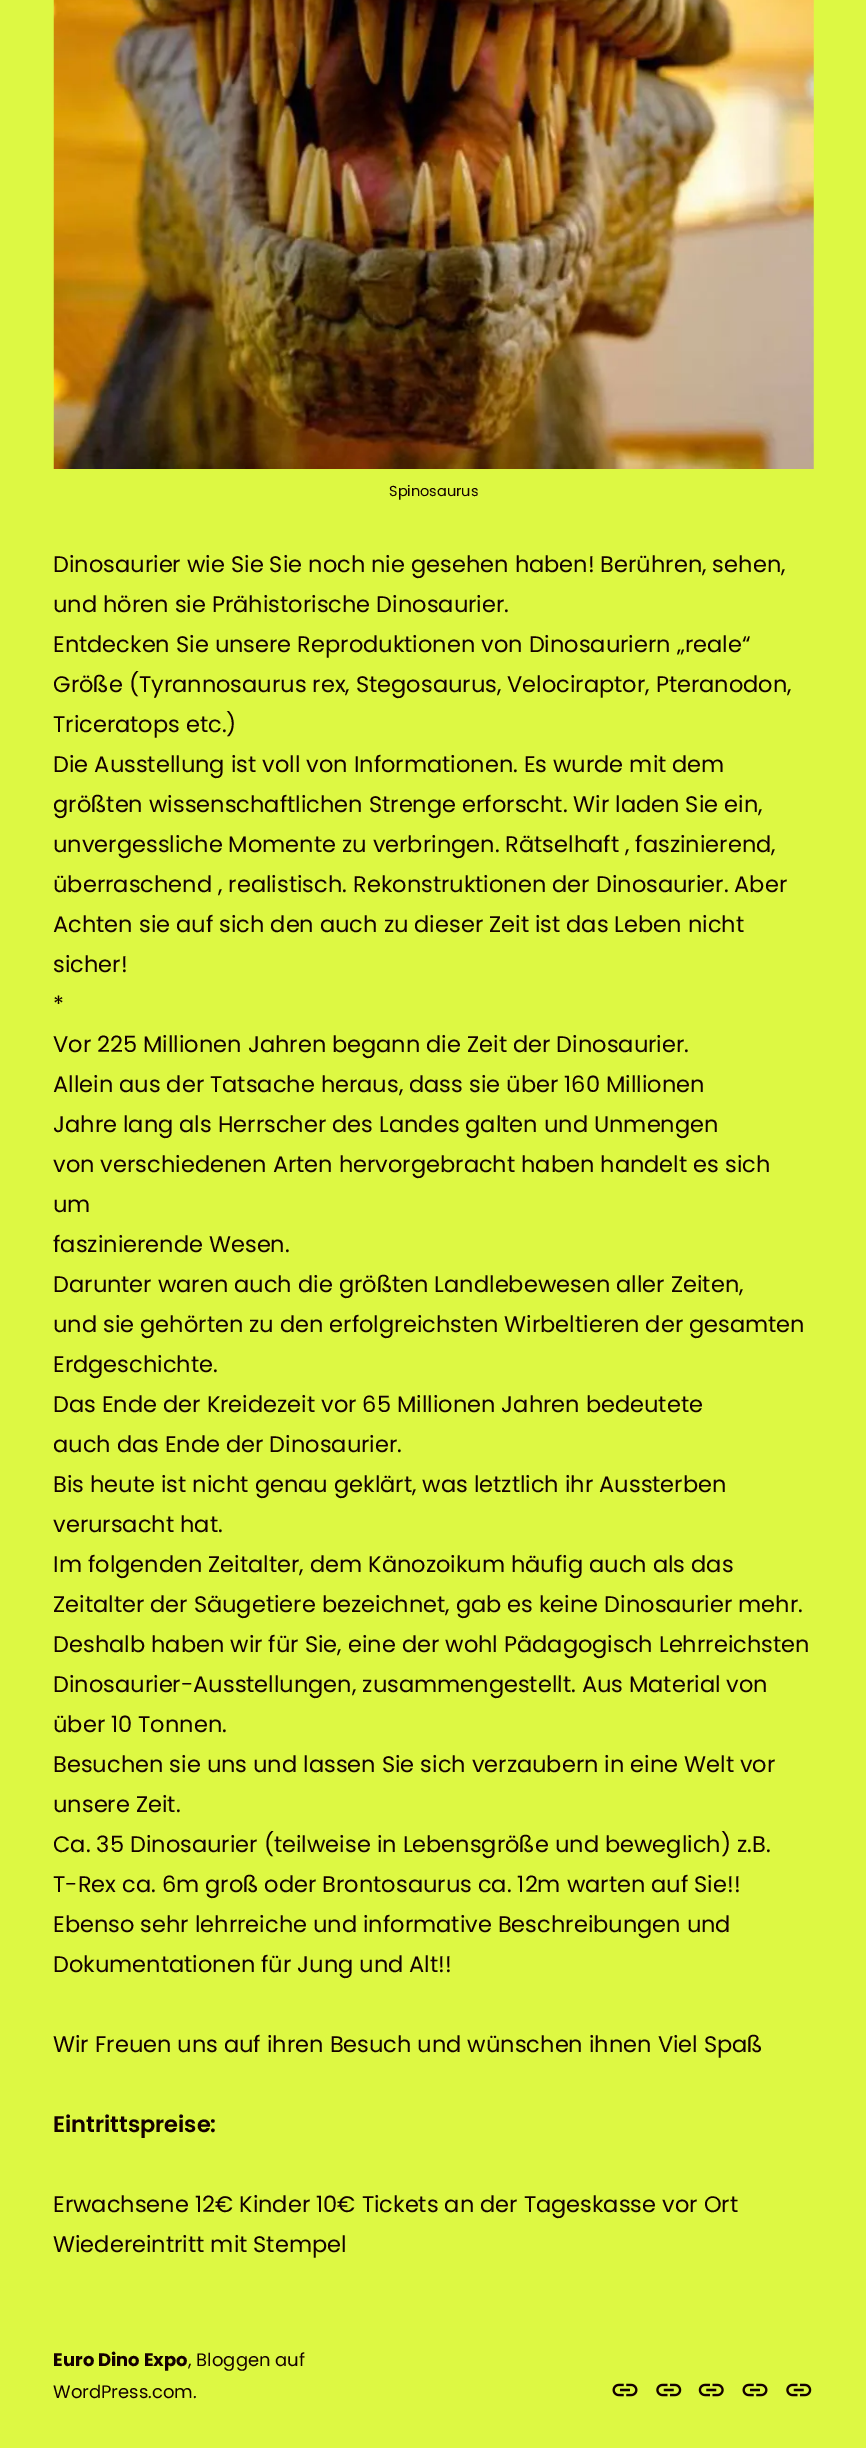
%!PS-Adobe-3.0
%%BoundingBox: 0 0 866 2448
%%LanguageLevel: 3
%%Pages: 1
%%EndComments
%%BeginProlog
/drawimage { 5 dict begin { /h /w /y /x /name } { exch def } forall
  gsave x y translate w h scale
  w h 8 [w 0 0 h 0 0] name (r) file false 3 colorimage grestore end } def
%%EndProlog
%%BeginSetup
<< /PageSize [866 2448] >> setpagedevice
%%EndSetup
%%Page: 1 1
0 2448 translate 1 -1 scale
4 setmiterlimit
0.867 0.973 0.263 setrgbcolor
0 0 866 2448 rectfill
(images/1.raw) 53 0 761 469 drawimage
(images/2.raw) 612 2383 26 14 drawimage
(images/3.raw) 656 2383 26 14 drawimage
(images/4.raw) 698 2383 26 14 drawimage
(images/2.raw) 742 2383 26 14 drawimage
(images/3.raw) 786 2383 26 14 drawimage
/Poppins-Regular [14.5 0 0 -14.5 0 0] selectfont
0.078 0 0 setrgbcolor
389 496 moveto (Spinosaurus) show
/Poppins-Regular [22.5 0 0 -22.5 0 0] selectfont
53 572 moveto (Dinosaurier wie Sie Sie noch nie gesehen haben! Berühren, sehen,) show
53 612 moveto (und hören sie Prähistorische Dinosaurier.) show
53 652 moveto (Entdecken Sie unsere Reproduktionen von Dinosauriern „reale“) show
53 692 moveto (Größe \(Tyrannosaurus rex, Stegosaurus, Velociraptor, Pteranodon,) show
53 732 moveto (Triceratops etc.\)) show
53 772 moveto (Die Ausstellung ist voll von Informationen. Es wurde mit dem) show
53 812 moveto (größten wissenschaftlichen Strenge erforscht. Wir laden Sie ein,) show
53 852 moveto (unvergessliche Momente zu verbringen. Rätselhaft , faszinierend,) show
53 892 moveto (überraschend , realistisch. Rekonstruktionen der Dinosaurier. Aber) show
53 932 moveto (Achten sie auf sich den auch zu dieser Zeit ist das Leben nicht) show
53 972 moveto (sicher!) show
53 1012 moveto (*) show
53 1052 moveto (Vor 225 Millionen Jahren begann die Zeit der Dinosaurier.) show
53 1092 moveto (Allein aus der Tatsache heraus, dass sie über 160 Millionen) show
53 1132 moveto (Jahre lang als Herrscher des Landes galten und Unmengen) show
53 1172 moveto (von verschiedenen Arten hervorgebracht haben handelt es sich) show
53 1212 moveto (um) show
53 1252 moveto (faszinierende Wesen.) show
53 1292 moveto (Darunter waren auch die größten Landlebewesen aller Zeiten,) show
53 1332 moveto (und sie gehörten zu den erfolgreichsten Wirbeltieren der gesamten) show
53 1372 moveto (Erdgeschichte.) show
53 1412 moveto (Das Ende der Kreidezeit vor 65 Millionen Jahren bedeutete) show
53 1452 moveto (auch das Ende der Dinosaurier.) show
53 1492 moveto (Bis heute ist nicht genau geklärt, was letztlich ihr Aussterben) show
53 1532 moveto (verursacht hat.) show
53 1572 moveto (Im folgenden Zeitalter, dem Känozoikum häufig auch als das) show
53 1612 moveto (Zeitalter der Säugetiere bezeichnet, gab es keine Dinosaurier mehr.) show
53 1652 moveto (Deshalb haben wir für Sie, eine der wohl Pädagogisch Lehrreichsten) show
53 1692 moveto (Dinosaurier-Ausstellungen, zusammengestellt. Aus Material von) show
53 1732 moveto (über 10 Tonnen.) show
53 1772 moveto (Besuchen sie uns und lassen Sie sich verzaubern in eine Welt vor) show
53 1812 moveto (unsere Zeit.) show
53 1852 moveto (Ca. 35 Dinosaurier \(teilweise in Lebensgröße und beweglich\) z.B.) show
53 1892 moveto (T-Rex ca. 6m groß oder Brontosaurus ca. 12m warten auf Sie!!) show
53 1932 moveto (Ebenso sehr lehrreiche und informative Beschreibungen und) show
53 1972 moveto (Dokumentationen für Jung und Alt!!) show
53 2052 moveto (Wir Freuen uns auf ihren Besuch und wünschen ihnen Viel Spaß) show
/Poppins-SemiBold [22.5 0 0 -22.5 0 0] selectfont
53 2132 moveto (Eintrittspreise:) show
/Poppins-Regular [22.5 0 0 -22.5 0 0] selectfont
53 2212 moveto (Erwachsene 12€ Kinder 10€ Tickets an der Tageskasse vor Ort) show
53 2252 moveto (Wiedereintritt mit Stempel) show
/Poppins-Bold [18 0 0 -18 0 0] selectfont
53 2366 moveto (Euro Dino Expo) show
/Poppins-Regular [18 0 0 -18 0 0] selectfont
188 2366 moveto (, Bloggen auf) show
53 2398 moveto (WordPress.com.) show
showpage
%%EOF
